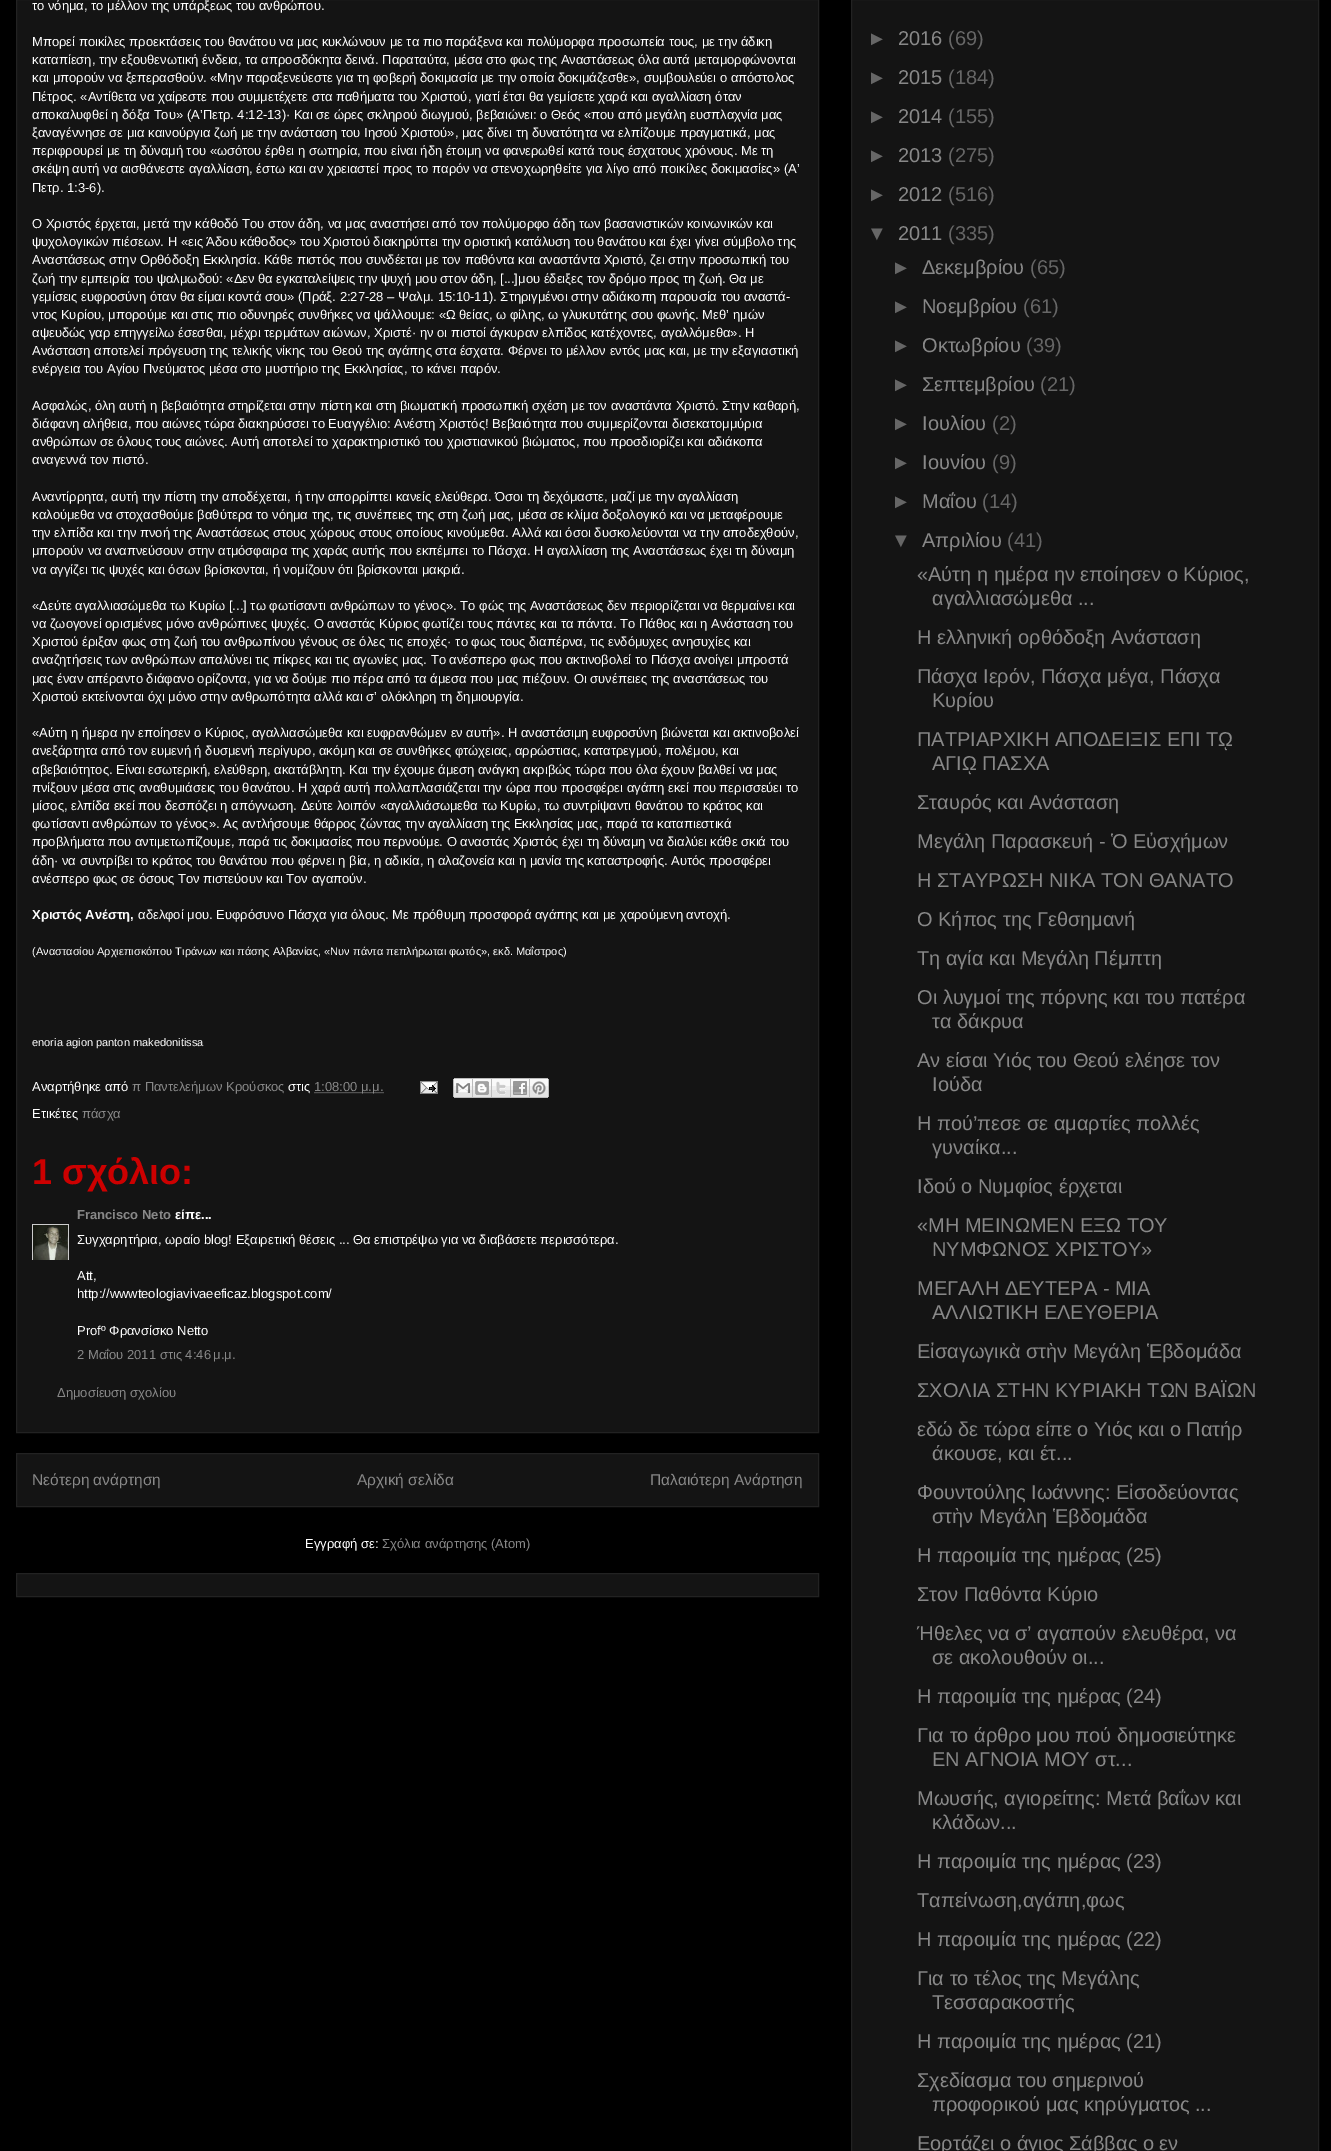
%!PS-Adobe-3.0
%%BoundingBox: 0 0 1331 2151
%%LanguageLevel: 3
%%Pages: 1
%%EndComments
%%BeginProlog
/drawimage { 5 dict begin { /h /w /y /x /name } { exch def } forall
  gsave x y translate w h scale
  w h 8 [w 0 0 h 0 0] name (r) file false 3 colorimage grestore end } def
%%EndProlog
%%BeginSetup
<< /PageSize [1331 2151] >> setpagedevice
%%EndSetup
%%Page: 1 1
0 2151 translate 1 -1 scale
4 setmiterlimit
0 setgray
0 0 1331 2151 rectfill
0.078 setgray
newpath 16.5 -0.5 moveto 818.5 -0.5 lineto 818.5 1432.5 lineto 16.5 1432.5 lineto closepath gsave fill grestore
0.133 setgray
stroke
0.533 setgray
[1 1] 0 setdash
newpath 314.5 1092.5 moveto 383.5 1092.5 lineto stroke
(images/1.raw) 420 1081 18 13 drawimage
(images/2.raw) 453 1078 20 20 drawimage
(images/3.raw) 473 1078 19 20 drawimage
(images/4.raw) 492 1078 19 20 drawimage
(images/5.raw) 511 1078 19 20 drawimage
(images/6.raw) 530 1078 19 20 drawimage
gsave
32 1224 37 36 rectclip
0.8 setgray
[] 0 setdash
32.5 1224.5 36 36 rectstroke
grestore
(images/7.raw) 33 1225 35 35 drawimage
0.078 setgray
newpath 16.5 1453.5 moveto 818.5 1453.5 lineto 818.5 1506.5 lineto 16.5 1506.5 lineto closepath gsave fill grestore
0.133 setgray
[] 0 setdash
stroke
0.078 setgray
newpath 16.5 1573.5 moveto 818.5 1573.5 lineto 818.5 1596.5 lineto 16.5 1596.5 lineto closepath gsave fill grestore
0.133 setgray
stroke
0.078 setgray
newpath 851.5 -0.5 moveto 1318.5 -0.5 lineto 1318.5 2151.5 lineto 851.5 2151.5 lineto closepath gsave fill grestore
0.133 setgray
stroke
/LiberationSans-Regular [13 0 0 -13 0 0] selectfont
1 setgray
32 10 moveto (το νόημα, το μέλλον της υπάρξεως του ανθρώπου.) show
32 46 moveto (Μπορεί ποικίλες προεκτάσεις του θανάτου να μας κυκλώνουν με τα πιο παράξενα και πολύμορφα προσωπεία τους, με την άδικη) show
32 64 moveto (καταπίεση, την εξουθενωτική ένδεια, τα απροσδόκητα δεινά. Παραταύτα, μέσα στο φως της Αναστάσεως όλα αυτά μεταμορφώνονται) show
32 82 moveto (και μπορούν να ξεπερασθούν. «Μην παραξενεύεστε για τη φοβερή δοκιμασία με την οποία δοκιμάζεσθε», συμβουλεύει ο απόστολος) show
32 101 moveto (Πέτρος. «Αντίθετα να χαίρεστε που συμμετέχετε στα παθήματα του Χριστού, γιατί έτσι θα γεμίσετε χαρά και αγαλλίαση όταν) show
32 119 moveto (αποκαλυφθεί η δόξα Του» \(Α’Πετρ. 4:12-13\)· Και σε ώρες σκληρού διωγμού, βεβαιώνει: ο Θεός «που από μεγάλη ευσπλαχνία μας) show
32 137 moveto (ξαναγέννησε σε μια καινούργια ζωή με την ανάσταση του Ιησού Χριστού», μας δίνει τη δυνατότητα να ελπίζουμε πραγματικά, μας) show
32 155 moveto (περιφρουρεί με τη δύναμή του «ωσότου έρθει η σωτηρία, που είναι ήδη έτοιμη να φανερωθεί κατά τους έσχατους χρόνους. Με τη) show
32 173 moveto (σκέψη αυτή να αισθάνεστε αγαλλίαση, έστω και αν χρειαστεί προς το παρόν να στενοχωρηθείτε για λίγο από ποικίλες δοκιμασίες» \(Α’) show
32 192 moveto (Πετρ. 1:3-6\).) show
32 228 moveto (Ο Χριστός έρχεται, μετά την κάθοδό Του στον άδη, να μας αναστήσει από τον πολύμορφο άδη των βασανιστικών κοινωνικών και) show
32 246 moveto (ψυχολογικών πιέσεων. Η «εις Άδου κάθοδος» του Χριστού διακηρύττει την οριστική κατάλυση του θανάτου και έχει γίνει σύμβολο της) show
32 264 moveto (Αναστάσεως στην Ορθόδοξη Εκκλησία. Κάθε πιστός που συνδέεται με τον παθόντα και αναστάντα Χριστό, ζει στην προσωπική του) show
32 283 moveto (ζωή την εμπειρία του ψαλμωδού: «Δεν θα εγκαταλείψεις την ψυχή μου στον άδη, [...]μου έδειξες τον δρόμο προς τη ζωή. Θα με) show
32 301 moveto (γεμίσεις ευφροσύνη όταν θα είμαι κοντά σου» \(Πράξ. 2:27-28 – Ψαλμ. 15:10-11\). Στηριγμένοι στην αδιάκοπη παρουσία του αναστά-) show
32 319 moveto (ντος Κυρίου, μπορούμε και στις πιο οδυνηρές συνθήκες να ψάλλουμε: «Ω θείας, ω φίλης, ω γλυκυτάτης σου φωνής. Μεθ’ ημών) show
32 337 moveto (αψευδώς γαρ επηγγείλω έσεσθαι, μέχρι τερμάτων αιώνων, Χριστέ· ην οι πιστοί άγκυραν ελπίδος κατέχοντες, αγαλλόμεθα». Η) show
32 355 moveto (Ανάσταση αποτελεί πρόγευση της τελικής νίκης του Θεού της αγάπης στα έσχατα. Φέρνει το μέλλον εντός μας και, με την εξαγιαστική) show
32 373 moveto (ενέργεια του Αγίου Πνεύματος μέσα στο μυστήριο της Εκκλησίας, το κάνει παρόν.) show
32 410 moveto (Ασφαλώς, όλη αυτή η βεβαιότητα στηρίζεται στην πίστη και στη βιωματική προσωπική σχέση με τον αναστάντα Χριστό. Στην καθαρή,) show
32 428 moveto (διάφανη αλήθεια, που αιώνες τώρα διακηρύσσει το Ευαγγέλιο: Ανέστη Χριστός! Βεβαιότητα που συμμερίζονται δισεκατομμύρια) show
32 446 moveto (ανθρώπων σε όλους τους αιώνες. Αυτή αποτελεί το χαρακτηριστικό του χριστιανικού βιώματος, που προσδιορίζει και αδιάκοπα) show
32 464 moveto (αναγεννά τον πιστό.) show
32 501 moveto (Αναντίρρητα, αυτή την πίστη την αποδέχεται, ή την απορρίπτει κανείς ελεύθερα. Όσοι τη δεχόμαστε, μαζί με την αγαλλίαση) show
32 519 moveto (καλούμεθα να στοχασθούμε βαθύτερα το νόημα της, τις συνέπειες της στη ζωή μας, μέσα σε κλίμα δοξολογικό και να μεταφέρουμε) show
32 537 moveto (την ελπίδα και την πνοή της Αναστάσεως στους χώρους στους οποίους κινούμεθα. Αλλά και όσοι δυσκολεύονται να την αποδεχθούν,) show
32 555 moveto (μπορούν να αναπνεύσουν στην ατμόσφαιρα της χαράς αυτής που εκπέμπει το Πάσχα. Η αγαλλίαση της Αναστάσεως έχει τη δύναμη) show
32 574 moveto (να αγγίζει τις ψυχές και όσων βρίσκονται, ή νομίζουν ότι βρίσκονται μακριά.) show
32 610 moveto («Δεύτε αγαλλιασώμεθα τω Κυρίω [...] τω φωτίσαντι ανθρώπων το γένος». Το φώς της Αναστάσεως δεν περιορίζεται να θερμαίνει και) show
32 628 moveto (να ζωογονεί ορισμένες μόνο ανθρώπινες ψυχές. Ο αναστάς Κύριος φωτίζει τους πάντες και τα πάντα. Το Πάθος και η Ανάσταση του) show
32 646 moveto (Χριστού έριξαν φως στη ζωή του ανθρωπίνου γένους σε όλες τις εποχές· το φως τους διαπέρνα, τις ενδόμυχες ανησυχίες και) show
32 664 moveto (αναζητήσεις των ανθρώπων απαλύνει τις πίκρες και τις αγωνίες μας. Το ανέσπερο φως που ακτινοβολεί το Πάσχα ανοίγει μπροστά) show
32 683 moveto (μας έναν απέραντο διάφανο ορίζοντα, για να δούμε πιο πέρα από τα άμεσα που μας πιέζουν. Οι συνέπειες της αναστάσεως του) show
32 701 moveto (Χριστού εκτείνονται όχι μόνο στην ανθρωπότητα αλλά και σ’ ολόκληρη τη δημιουργία.) show
32 737 moveto («Αύτη η ήμερα ην εποίησεν ο Κύριος, αγαλλιασώμεθα και ευφρανθώμεν εν αυτή». Η αναστάσιμη ευφροσύνη βιώνεται και ακτινοβολεί) show
32 755 moveto (ανεξάρτητα από τον ευμενή ή δυσμενή περίγυρο, ακόμη και σε συνθήκες φτώχειας, αρρώστιας, κατατρεγμού, πολέμου, και) show
32 774 moveto (αβεβαιότητος. Είναι εσωτερική, ελεύθερη, ακατάβλητη. Και την έχουμε άμεση ανάγκη ακριβώς τώρα που όλα έχουν βαλθεί να μας) show
32 792 moveto (πνίξουν μέσα στις αναθυμιάσεις του θανάτου. Η χαρά αυτή πολλαπλασιάζεται την ώρα που προσφέρει αγάπη εκεί που περισσεύει το) show
32 810 moveto (μίσος, ελπίδα εκεί που δεσπόζει η απόγνωση. Δεύτε λοιπόν «αγαλλιάσωμεθα τω Κυρίω, τω συντρίψαντι θανάτου το κράτος και) show
32 828 moveto (φωτίσαντι ανθρώπων το γένος». Ας αντλήσουμε θάρρος ζώντας την αγαλλίαση της Εκκλησίας μας, παρά τα καταπιεστικά) show
32 846 moveto (προβλήματα που αντιμετωπίζουμε, παρά τις δοκιμασίες που περνούμε. Ο αναστάς Χριστός έχει τη δύναμη να διαλύει κάθε σκιά του) show
32 865 moveto (άδη· να συντρίβει το κράτος του θανάτου που φέρνει η βία, η αδικία, η αλαζονεία και η μανία της καταστροφής. Αυτός προσφέρει) show
32 883 moveto (ανέσπερο φως σε όσους Τον πιστεύουν και Τον αγαπούν.) show
/LiberationSans-Bold [13 0 0 -13 0 0] selectfont
32 919 moveto (Χριστός Ανέστη,) show
/LiberationSans-Regular [13 0 0 -13 0 0] selectfont
138 919 moveto (αδελφοί μου. Ευφρόσυνο Πάσχα για όλους. Με πρόθυμη προσφορά αγάπης και με χαρούμενη αντοχή.) show
/LiberationSans-Regular [11.05 0 0 -11.05 0 0] selectfont
32 955 moveto (\(Αναστασίου Αρχιεπισκόπου Τιράνων και πάσης Αλβανίας, «Νυν πάντα πεπλήρωται φωτός», εκδ. Μαΐστρος\)) show
32 1046 moveto (enoria agion panton makedonitissa) show
/LiberationSans-Regular [13 0 0 -13 0 0] selectfont
32 1091 moveto (Αναρτήθηκε από) show
0.533 setgray
132 1091 moveto (π Παντελεήμων Kρούσκος) show
1 setgray
288 1091 moveto (στις) show
0.533 setgray
314 1091 moveto (1:08:00 μ.μ.) show
1 setgray
32 1118 moveto (Ετικέτες) show
0.533 setgray
82 1118 moveto (πάσχα) show
/LiberationSans-Bold [36 0 0 -36 0 0] selectfont
0.8 0 0 setrgbcolor
32 1184 moveto (1 σχόλιο:) show
/LiberationSans-Bold [13 0 0 -13 0 0] selectfont
0.533 setgray
77 1219 moveto (Francisco Neto) show
1 setgray
175 1219 moveto (είπε...) show
/LiberationSans-Regular [13 0 0 -13 0 0] selectfont
77 1244 moveto (Συγχαρητήρια, ωραίο blog! Εξαιρετική θέσεις ... Θα επιστρέψω για να διαβάσετε περισσότερα.) show
77 1280 moveto (Att,) show
77 1298 moveto (http://wwwteologiavivaeeficaz.blogspot.com/) show
77 1335 moveto (Profº Φρανσίσκο Netto) show
0.533 setgray
77 1359 moveto (2 Μαΐου 2011 στις 4:46 μ.μ.) show
57 1397 moveto (Δημοσίευση σχολίου) show
/LiberationSans-Regular [15.5 0 0 -15.5 0 0] selectfont
32 1485 moveto (Νεότερη ανάρτηση) show
357 1485 moveto (Αρχική σελίδα) show
650 1485 moveto (Παλαιότερη Ανάρτηση) show
/LiberationSans-Regular [13 0 0 -13 0 0] selectfont
1 setgray
305 1548 moveto (Εγγραφή σε:) show
0.533 setgray
382 1548 moveto (Σχόλια ανάρτησης \(Atom\)) show
/LiberationSans-Regular [20 0 0 -20 0 0] selectfont
0.4 setgray
867 45 moveto (►) show
0.533 setgray
898 45 moveto (2016) show
0.4 setgray
948 45 moveto (\(69\)) show
867 84 moveto (►) show
0.533 setgray
898 84 moveto (2015) show
0.4 setgray
948 84 moveto (\(184\)) show
867 123 moveto (►) show
0.533 setgray
898 123 moveto (2014) show
0.4 setgray
948 123 moveto (\(155\)) show
867 162 moveto (►) show
0.533 setgray
898 162 moveto (2013) show
0.4 setgray
948 162 moveto (\(275\)) show
867 201 moveto (►) show
0.533 setgray
898 201 moveto (2012) show
0.4 setgray
948 201 moveto (\(516\)) show
867 240 moveto (▼) show
0.533 setgray
898 240 moveto (2011) show
0.4 setgray
948 240 moveto (\(335\)) show
891 274 moveto (►) show
0.533 setgray
922 274 moveto (Δεκεμβρίου) show
0.4 setgray
1030 274 moveto (\(65\)) show
891 313 moveto (►) show
0.533 setgray
922 313 moveto (Νοεμβρίου) show
0.4 setgray
1023 313 moveto (\(61\)) show
891 352 moveto (►) show
0.533 setgray
922 352 moveto (Οκτωβρίου) show
0.4 setgray
1026 352 moveto (\(39\)) show
891 391 moveto (►) show
0.533 setgray
922 391 moveto (Σεπτεμβρίου) show
0.4 setgray
1040 391 moveto (\(21\)) show
891 430 moveto (►) show
0.533 setgray
922 430 moveto (Ιουλίου) show
0.4 setgray
992 430 moveto (\(2\)) show
891 469 moveto (►) show
0.533 setgray
922 469 moveto (Ιουνίου) show
0.4 setgray
992 469 moveto (\(9\)) show
891 508 moveto (►) show
0.533 setgray
922 508 moveto (Μαΐου) show
0.4 setgray
982 508 moveto (\(14\)) show
891 547 moveto (▼) show
0.533 setgray
922 547 moveto (Απριλίου) show
0.4 setgray
1007 547 moveto (\(41\)) show
0.533 setgray
917 581 moveto («Αύτη η ημέρα ην εποίησεν ο Κύριος,) show
932 605 moveto (αγαλλιασώμεθα ...) show
917 644 moveto (Η ελληνική ορθόδοξη Ανάσταση) show
917 683 moveto (Πάσχα Ιερόν, Πάσχα μέγα, Πάσχα) show
932 707 moveto (Κυρίου) show
917 746 moveto (ΠΑΤΡΙΑΡΧΙΚΗ ΑΠΟΔΕΙΞΙΣ ΕΠΙ Τῼ) show
932 770 moveto (ΑΓΙῼ ΠΑΣΧΑ) show
917 809 moveto (Σταυρός και Ανάσταση) show
917 848 moveto (Μεγάλη Παρασκευή - Ὁ Εὐσχήμων) show
917 887 moveto (Η ΣΤΑΥΡΩΣΗ ΝΙΚΑ ΤΟΝ ΘΑΝΑΤΟ) show
917 926 moveto (Ο Κήπος της Γεθσημανή) show
917 965 moveto (Τη αγία και Μεγάλη Πέμπτη) show
917 1004 moveto (Οι λυγμοί της πόρνης και του πατέρα) show
932 1028 moveto (τα δάκρυα) show
917 1067 moveto (Αν είσαι Υιός του Θεού ελέησε τον) show
932 1091 moveto (Ιούδα) show
917 1130 moveto (Η πού’πεσε σε αμαρτίες πολλές) show
932 1154 moveto (γυναίκα...) show
917 1193 moveto (Ιδού ο Νυμφίος έρχεται) show
917 1232 moveto («ΜΗ ΜΕΙΝΩΜΕΝ ΕΞΩ ΤΟΥ) show
932 1256 moveto (ΝΥΜΦΩΝΟΣ ΧΡΙΣΤΟΥ») show
917 1295 moveto (ΜΕΓΑΛΗ ΔΕΥΤΕΡΑ - ΜΙΑ) show
932 1319 moveto (ΑΛΛΙΩΤΙΚΗ ΕΛΕΥΘΕΡΙΑ) show
917 1358 moveto (Εἰσαγωγικὰ στὴν Μεγάλη Ἑβδομάδα) show
917 1397 moveto (ΣΧΟΛΙΑ ΣΤΗΝ ΚΥΡΙΑΚΗ ΤΩΝ ΒΑΪΩΝ) show
917 1436 moveto (εδώ δε τώρα είπε ο Υιός και ο Πατήρ) show
932 1460 moveto (άκουσε, και έτ...) show
917 1499 moveto (Φουντούλης Ιωάννης: Εἰσοδεύοντας) show
932 1523 moveto (στὴν Μεγάλη Ἑβδομάδα) show
917 1562 moveto (Η παροιμία της ημέρας \(25\)) show
917 1601 moveto (Στον Παθόντα Κύριο) show
917 1640 moveto (Ήθελες να σ’ αγαπούν ελευθέρα, να) show
932 1664 moveto (σε ακολουθούν οι...) show
917 1703 moveto (Η παροιμία της ημέρας \(24\)) show
917 1742 moveto (Για το άρθρο μου πού δημοσιεύτηκε) show
932 1766 moveto (ΕΝ ΑΓΝΟΙΑ ΜΟΥ στ...) show
917 1805 moveto (Μωυσής, αγιορείτης: Μετά βαΐων και) show
932 1829 moveto (κλάδων...) show
917 1868 moveto (Η παροιμία της ημέρας \(23\)) show
917 1907 moveto (Tαπείνωση,αγάπη,φως) show
917 1946 moveto (Η παροιμία της ημέρας \(22\)) show
917 1985 moveto (Για το τέλος της Μεγάλης) show
932 2009 moveto (Τεσσαρακοστής) show
917 2048 moveto (Η παροιμία της ημέρας \(21\)) show
917 2087 moveto (Σχεδίασμα του σημερινού) show
932 2111 moveto (προφορικού μας κηρύγματος ...) show
917 2150 moveto (Εορτάζει ο άγιος Σάββας ο εν) show
showpage
%%EOF
